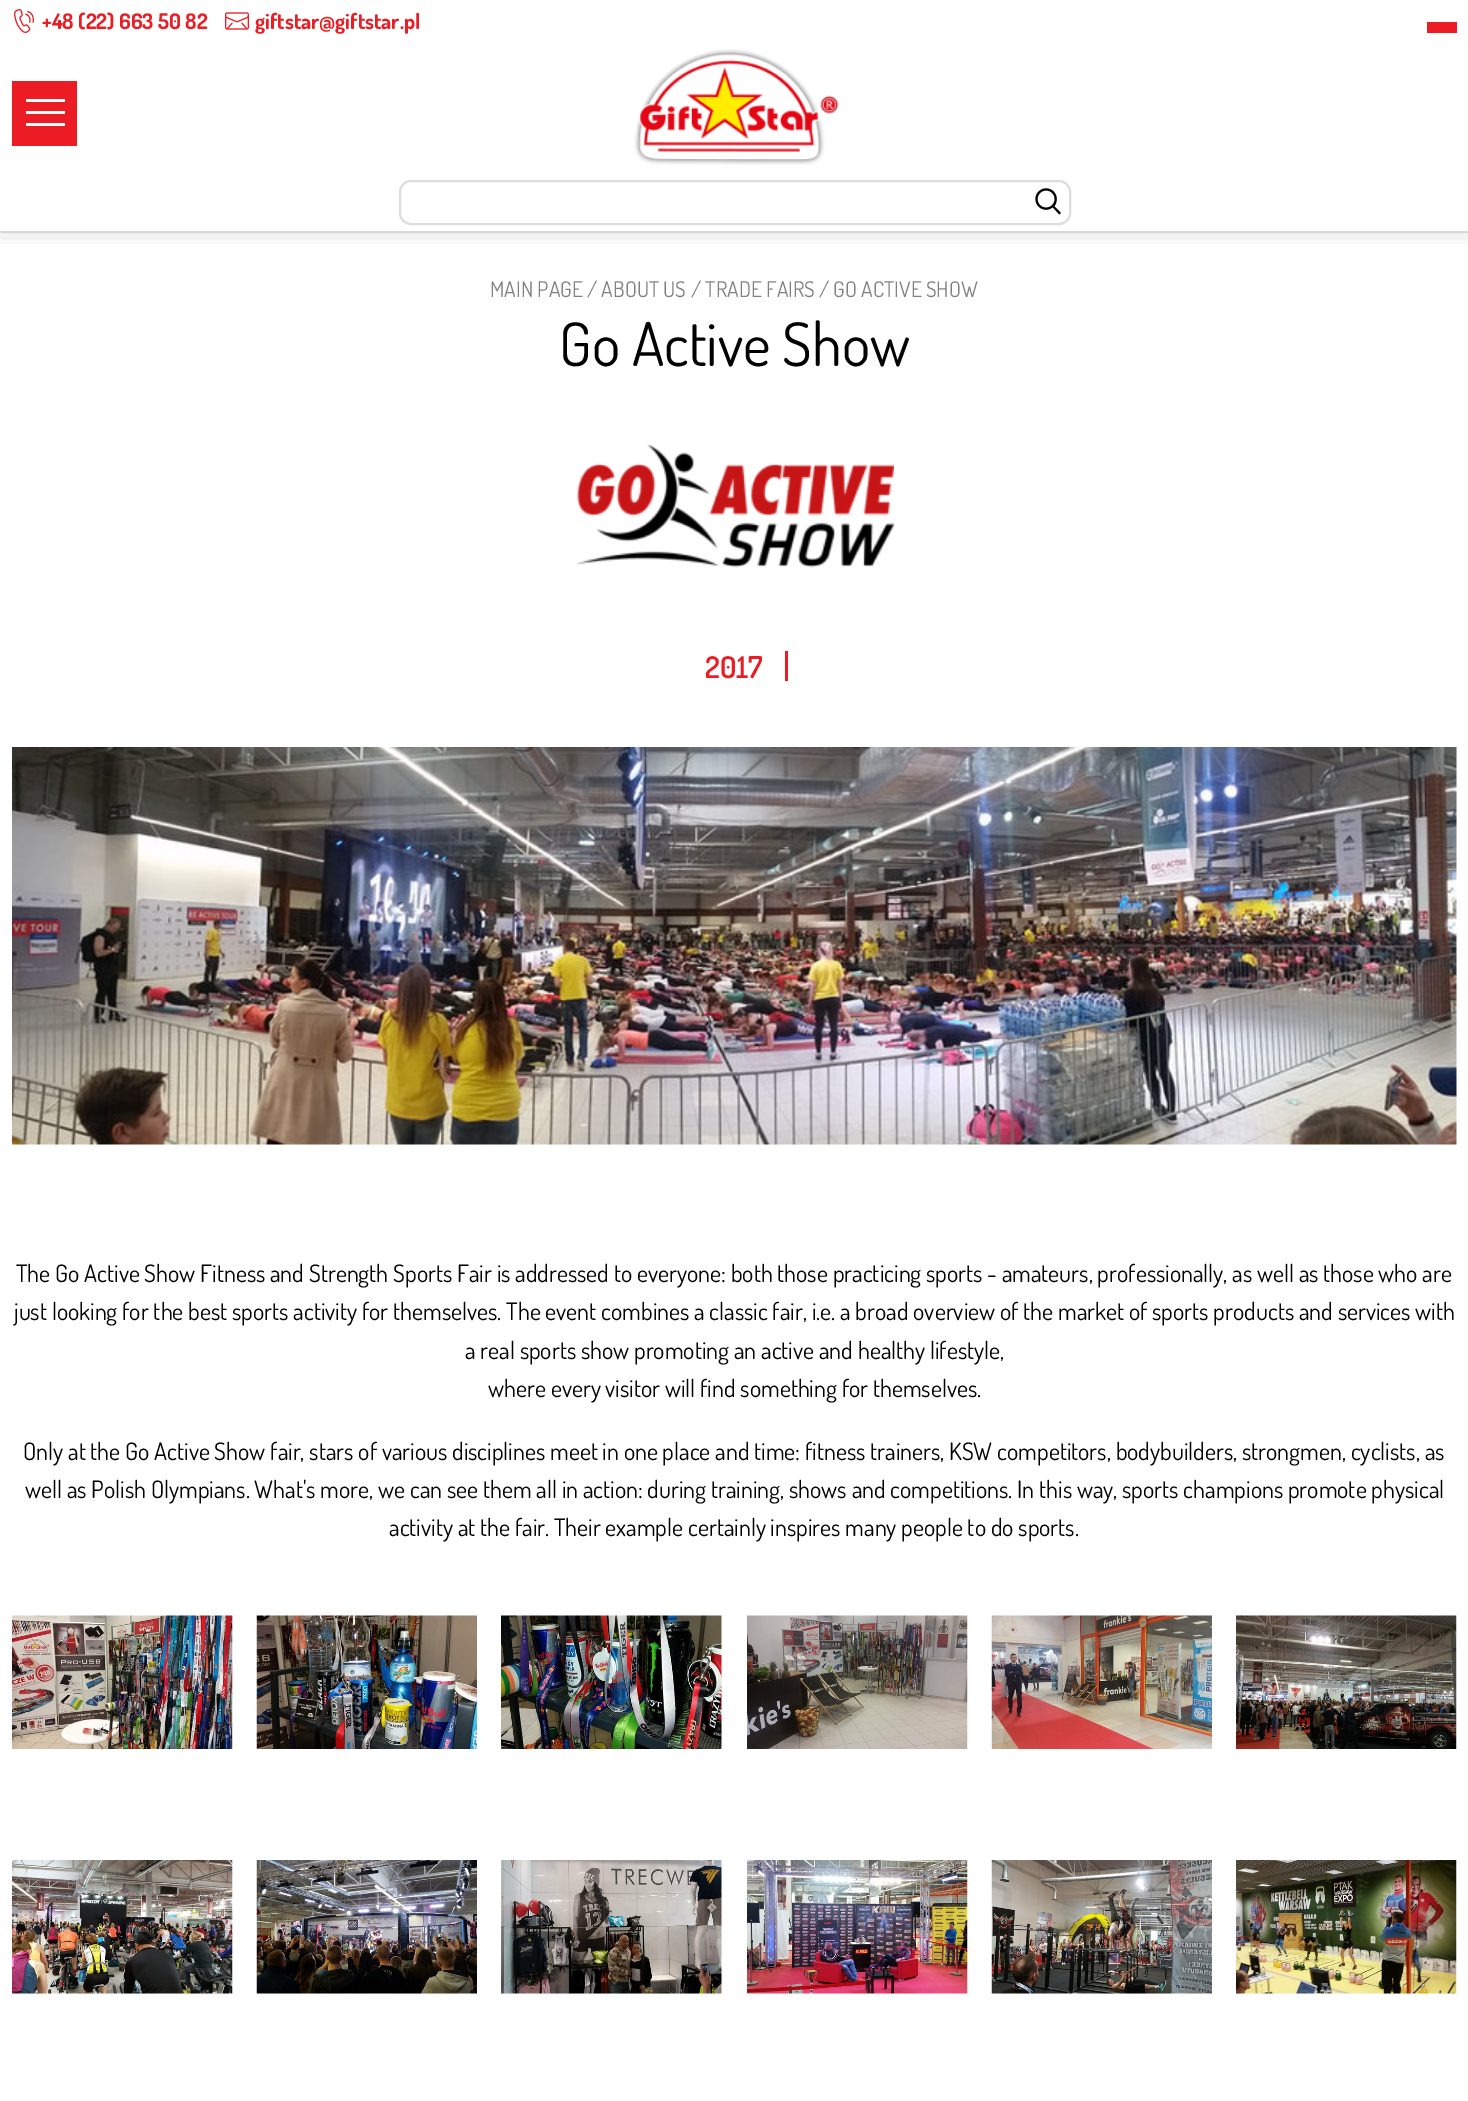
%!PS-Adobe-3.0
%%BoundingBox: 0 0 1468 2101
%%LanguageLevel: 3
%%Pages: 1
%%EndComments
%%BeginProlog
/setalpha { dup .setfillconstantalpha .setstrokeconstantalpha } def
/rrect { 5 dict begin { /r /h /w /y /x } { exch def } forall
  x r add y moveto x w add y 2 copy h add r arct x w add y h add x 1 index r arct
  x y h add x y r arct x y 2 copy exch w add exch r arct closepath end } def
/softshadow { 12 dict begin { /a /b /q /h /w /y /x } { exch def } forall gsave /was 0 def
  9 -2 -9 { dup b mul 4 div /e exch def 1 sub .425 mul 2.718 exch exp 1 add a .99 .min exch div /now exch def
    1 1 now sub 1 was sub div sub setalpha /was now def
    w h .min e 2 mul add 0 gt { x e sub y e sub w e 2 mul add h e 2 mul add
      q e add b .6 mul add w h .min 2 div e add .min 0 .max rrect fill } if } for grestore end } def
/drawimage { 5 dict begin { /h /w /y /x /name } { exch def } forall
  gsave x y translate w h scale
  w h 8 [w 0 0 h 0 0] name (r) file false 3 colorimage grestore end } def
%%EndProlog
%%BeginSetup
<< /PageSize [1468 2101] /PageUsesTransparency true >> setpagedevice
%%EndSetup
%%Page: 1 1
0 .pushpdf14devicefilter
0 2101 translate 1 -1 scale
4 setmiterlimit
1 setgray
0 0 1468 2101 rectfill
0.914 setgray
0 231 1468 2 rectfill
gsave
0 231 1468 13 rectclip
0 setgray
0 0 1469 231 0 12 0.15 softshadow
grestore
(images/1.raw) 14 9 20 24 drawimage
(images/2.raw) 225 12 24 18 drawimage
0.925 0.11 0.141 setrgbcolor
1427 22 30 11 rectfill
12 81 65 65 rectfill
1 setgray
26 111 39 3 rectfill
26 99 39 3 rectfill
26 123 39 3 rectfill
(images/3.raw) 634 49 205 116 drawimage
0.867 setgray
2 setlinewidth
400 181 670 43 11 rrect stroke
(images/4.raw) 1035 188 26 27 drawimage
(images/5.raw) 576 444 318 124 drawimage
0.925 0.11 0.141 setrgbcolor
785 651 3 30 rectfill
(images/6.raw) 12 747 1445 398 drawimage
(images/7.raw) 12 1615 221 134 drawimage
(images/8.raw) 256 1615 221 134 drawimage
(images/9.raw) 501 1615 221 134 drawimage
(images/10.raw) 747 1615 221 134 drawimage
(images/11.raw) 991 1615 221 134 drawimage
(images/12.raw) 1236 1615 221 134 drawimage
(images/13.raw) 12 1860 221 134 drawimage
(images/14.raw) 256 1860 221 134 drawimage
(images/15.raw) 501 1860 221 134 drawimage
(images/16.raw) 747 1860 221 134 drawimage
(images/17.raw) 991 1860 221 134 drawimage
(images/18.raw) 1236 1860 221 134 drawimage
/Dosis-Bold [21.5 0 0 -21.5 0 0] selectfont
42 29 moveto (+48 \(22\) 663 50 82) show
255 29 moveto (giftstar@giftstar.pl) show
/Dosis-Regular [21.5 0 0 -21.5 0 0] selectfont
0.502 setgray
490 297 moveto (MAIN PAGE) show
587 297 moveto (/ ABOUT US) show
691 297 moveto (/ TRADE FAIRS) show
819 297 moveto (/ GO ACTIVE SHOW) show
/Dosis-Regular [60 0 0 -60 0 0] selectfont
0 setgray
559 366 moveto (Go Active Show) show
/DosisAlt-SemiBold [30 0 0 -30 0 0] selectfont
0.925 0.11 0.141 setrgbcolor
705 678 moveto (2017) show
/Dosis-Regular [24 0 0 -24 0 0] selectfont
0 setgray
16 1282 moveto (The Go Active Show Fitness and Strength Sports Fair is addressed to everyone: both those practicing sports - amateurs, professionally, as well as those who are) show
14 1320 moveto (just looking for the best sports activity for themselves. The event combines a classic fair, i.e. a broad overview of the market of sports products and services with) show
465 1359 moveto (a real sports show promoting an active and healthy lifestyle,) show
488 1397 moveto (where every visitor will find something for themselves.) show
23 1460 moveto (Only at the Go Active Show fair, stars of various disciplines meet in one place and time: fitness trainers, KSW competitors, bodybuilders, strongmen, cyclists, as) show
25 1498 moveto (well as Polish Olympians. What's more, we can see them all in action: during training, shows and competitions. In this way, sports champions promote physical) show
389 1536 moveto (activity at the fair. Their example certainly inspires many people to do sports.) show
.poppdf14devicefilter showpage
%%EOF
